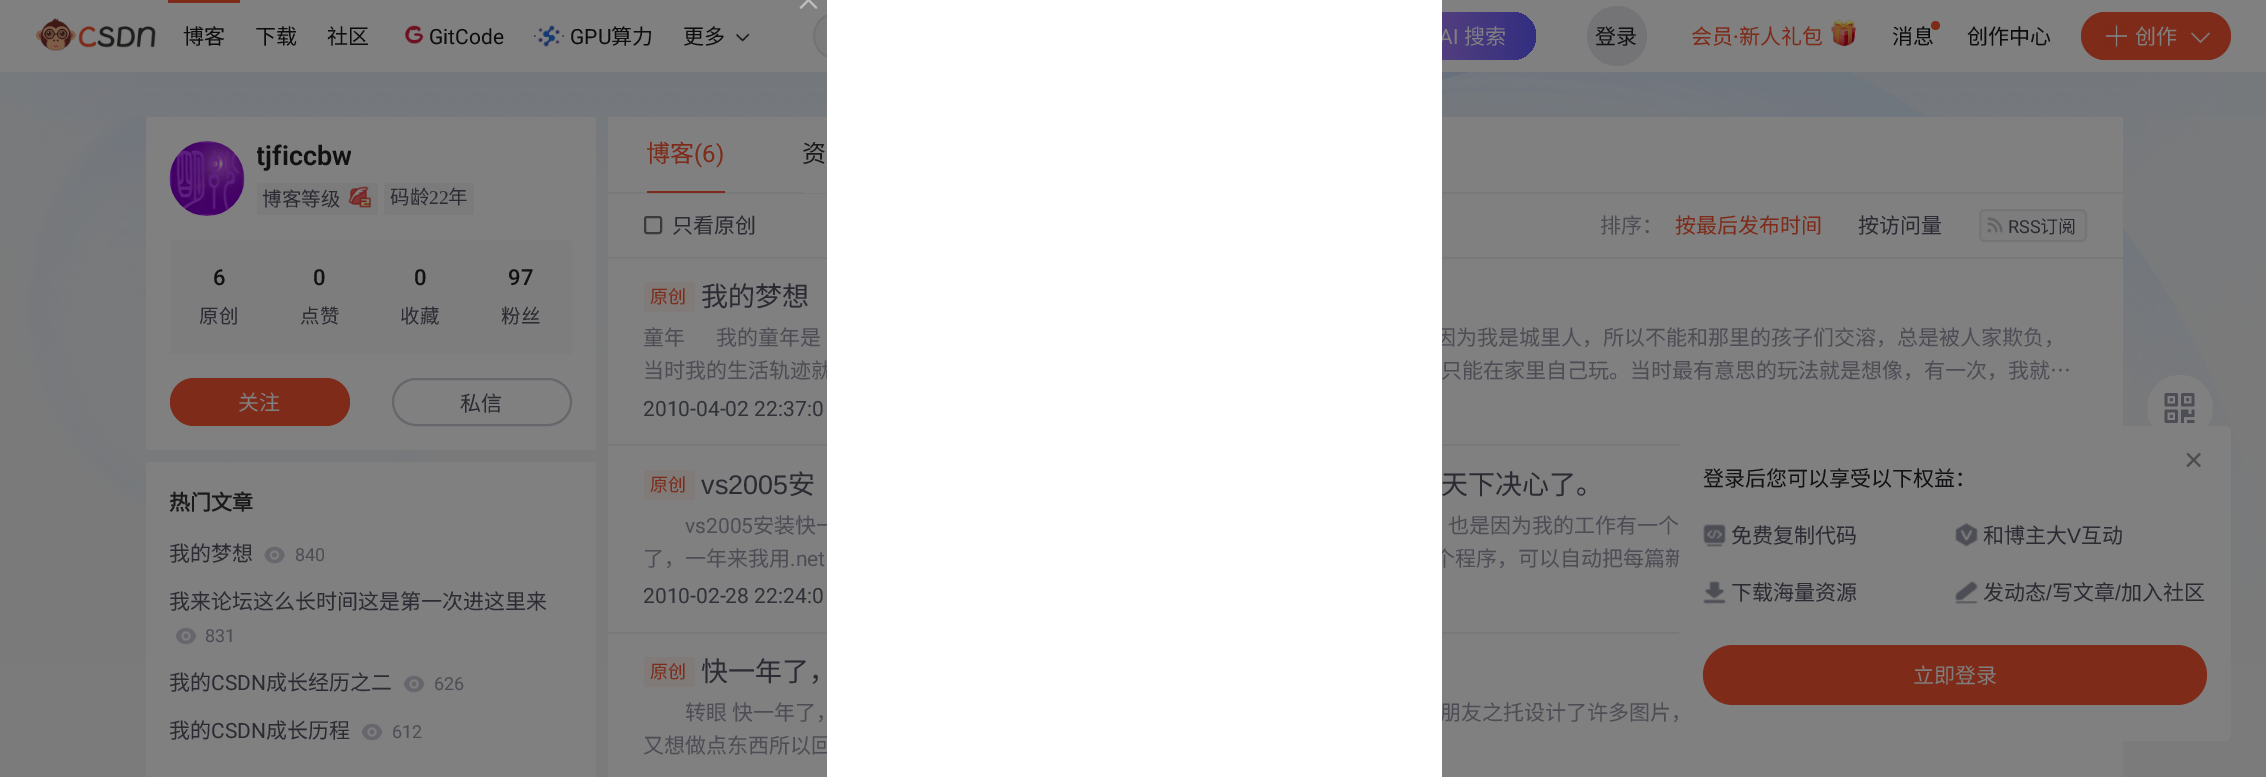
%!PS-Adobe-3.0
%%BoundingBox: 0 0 2266 777
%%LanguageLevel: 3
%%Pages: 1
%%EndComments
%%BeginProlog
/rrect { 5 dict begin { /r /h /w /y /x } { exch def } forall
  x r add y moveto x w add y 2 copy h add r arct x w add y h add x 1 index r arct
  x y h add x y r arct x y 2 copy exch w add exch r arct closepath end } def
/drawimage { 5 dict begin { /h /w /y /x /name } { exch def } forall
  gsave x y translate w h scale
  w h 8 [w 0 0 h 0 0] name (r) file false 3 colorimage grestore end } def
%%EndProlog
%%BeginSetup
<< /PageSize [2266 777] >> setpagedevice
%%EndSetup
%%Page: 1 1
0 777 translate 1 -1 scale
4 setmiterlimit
0.482 0.482 0.486 setrgbcolor
0 0 2266 777 rectfill
(images/1.raw) 0 117 2266 545 drawimage
0.502 setgray
0 0 2266 72 rectfill
(images/2.raw) 799 0 19 9 drawimage
(images/3.raw) 36 18 120 33 drawimage
0.494 0.169 0.098 setrgbcolor
168 0 72 3 rectfill
(images/4.raw) 405 25 19 19 drawimage
(images/5.raw) 534 25 30 22 drawimage
(images/6.raw) 736 33 14 9 drawimage
0.482 0.482 0.486 setrgbcolor
814 13 421 46 23 rrect gsave fill grestore
0.455 0.455 0.467 setrgbcolor
2 setlinewidth
stroke
gsave 1410 12 126 48 24 rrect clip newpath
<< /ShadingType 2 /ColorSpace /DeviceRGB /Coords [1410 36 1536 36] /Extend [true true] /Function << /FunctionType 2 /Domain [0 1] /C0 [0.365 0.267 0.49] /C1 [0.196 0.18 0.502] /N 1 >> >> shfill grestore
newpath 1617 36 30 0 360 arc closepath fill
(images/7.raw) 1831 19 25 28 drawimage
0.494 0.169 0.098 setrgbcolor
2081 12 150 48 24 rrect fill
(images/8.raw) 2106 25 21 22 drawimage
(images/9.raw) 2190 32 21 12 drawimage
(images/10.raw) 0 72 2266 45 drawimage
0.502 setgray
146 117 450 333 3 rrect fill
(images/11.raw) 169 141 76 75 drawimage
0.482 0.482 0.486 setrgbcolor
257 183 121 32 3 rrect fill
(images/12.raw) 348 186 24 22 drawimage
384 183 90 32 3 rrect fill
0.49 setgray
170 240 402 114 3 rrect fill
0.494 0.169 0.098 setrgbcolor
170 378 180 48 24 rrect fill
0.4 0.4 0.424 setrgbcolor
393 379 178 46 23 rrect stroke
0.502 setgray
146 462 450 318 3 rrect fill
(images/13.raw) 264 546 21 18 drawimage
(images/14.raw) 175 627 22 18 drawimage
(images/15.raw) 403 675 22 18 drawimage
(images/15.raw) 361 723 22 18 drawimage
608 117 1515 75 rectfill
0.471 0.475 0.482 setrgbcolor
912 192 1184 2 rectfill
0.494 0.169 0.098 setrgbcolor
647 191 78 2 rectfill
0.502 setgray
803 192 24 1 rectfill
608 194 1515 63 rectfill
0.231 setgray
645 217 16 16 2 rrect stroke
0.49 0.49 0.494 setrgbcolor
1980 210 106 31 5 rrect gsave fill grestore
0.459 0.459 0.471 setrgbcolor
stroke
(images/16.raw) 1987 217 16 16 drawimage
0.502 setgray
608 259 1515 518 rectfill
0.471 0.475 0.482 setrgbcolor
862 257 1261 2 rectfill
608 444 1071 2 rectfill
0.502 0.482 0.475 setrgbcolor
644 282 51 30 3 rrect fill
0.471 0.475 0.482 setrgbcolor
608 632 1071 2 rectfill
0.502 0.482 0.475 setrgbcolor
644 470 51 30 3 rrect fill
644 657 51 30 3 rrect fill
0.502 setgray
newpath 2180 408 33 0 360 arc closepath fill
(images/17.raw) 2164 393 31 30 drawimage
/NotoSansCJKSC-Regular [21 0 0 -21 0 0] selectfont
0.051 setgray
183 44 moveto (博客) show
255 44 moveto (下载) show
327 44 moveto (社区) show
/Roboto-Regular [21 0 0 -21 0 0] selectfont
429 44 moveto (GitCode) show
570 44 moveto (GPU) show
/NotoSansCJKSC-Regular [21 0 0 -21 0 0] selectfont
611 44 moveto (算力) show
683 44 moveto (更多) show
/Roboto-Regular [21 0 0 -21 0 0] selectfont
0.502 setgray
1439 44 moveto (AI) show
/NotoSansCJKSC-Regular [21 0 0 -21 0 0] selectfont
1464 44 moveto (搜索) show
0.067 0.067 0.075 setrgbcolor
1595 44 moveto (登录) show
0.494 0.169 0.098 setrgbcolor
1691 44 moveto (会员) show
/Roboto-Medium [21 0 0 -21 0 0] selectfont
1733 44 moveto (·) show
/NotoSansCJKSC-Regular [21 0 0 -21 0 0] selectfont
1739 44 moveto (新人礼包) show
0.051 setgray
1892 44 moveto (消息) show
0.494 0.169 0.098 setrgbcolor
newpath 1935.5 25.5 4.5 0 360 arc closepath fill
0.051 setgray
1967 44 moveto (创作中心) show
0.502 setgray
2135 44 moveto (创作) show
gsave
257 141 94 30 rectclip
/Roboto-SemiBold [27 0 0 -27 0 0] selectfont
0.067 0.067 0.075 setrgbcolor
256 165 moveto (tjficcbw) show
grestore
/NotoSansCJKSC-Regular [19.5 0 0 -19.5 0 0] selectfont
0.169 0.169 0.2 setrgbcolor
262 206 moveto (博客等级) show
390 204 moveto (码龄) show
/LiberationSerif-Regular [19.5 0 0 -19.5 0 0] selectfont
429 204 moveto (22) show
/NotoSansCJKSC-Regular [19.5 0 0 -19.5 0 0] selectfont
448 204 moveto (年) show
/Roboto-Medium [22 0 0 -22 0 0] selectfont
0.067 0.067 0.075 setrgbcolor
213 285 moveto (6) show
/NotoSansCJKSC-Regular [19.5 0 0 -19.5 0 0] selectfont
0.169 0.169 0.2 setrgbcolor
199 323 moveto (原创) show
/Roboto-Medium [22 0 0 -22 0 0] selectfont
0.067 0.067 0.075 setrgbcolor
313 285 moveto (0) show
/NotoSansCJKSC-Regular [19.5 0 0 -19.5 0 0] selectfont
0.169 0.169 0.2 setrgbcolor
300 323 moveto (点赞) show
/Roboto-Medium [22 0 0 -22 0 0] selectfont
0.067 0.067 0.075 setrgbcolor
414 285 moveto (0) show
/NotoSansCJKSC-Regular [19.5 0 0 -19.5 0 0] selectfont
0.169 0.169 0.2 setrgbcolor
400 323 moveto (收藏) show
/Roboto-Medium [22 0 0 -22 0 0] selectfont
0.067 0.067 0.075 setrgbcolor
508 285 moveto (97) show
/NotoSansCJKSC-Regular [19.5 0 0 -19.5 0 0] selectfont
0.169 0.169 0.2 setrgbcolor
501 323 moveto (粉丝) show
/NotoSansCJKSC-Regular [21 0 0 -21 0 0] selectfont
0.502 setgray
238 410 moveto (关注) show
0.169 0.169 0.2 setrgbcolor
460 411 moveto (私信) show
/NotoSansCJKSC-Bold [21 0 0 -21 0 0] selectfont
0.102 setgray
169 510 moveto (热门文章) show
/NotoSansCJKSC-Regular [21 0 0 -21 0 0] selectfont
0.169 0.169 0.2 setrgbcolor
169 561 moveto (我的梦想) show
/Roboto-Regular [18 0 0 -18 0 0] selectfont
0.302 0.302 0.333 setrgbcolor
295 561 moveto (840) show
/NotoSansCJKSC-Regular [21 0 0 -21 0 0] selectfont
0.169 0.169 0.2 setrgbcolor
169 609 moveto (我来论坛这么长时间这是第一次进这里来) show
/Roboto-Regular [18 0 0 -18 0 0] selectfont
0.302 0.302 0.333 setrgbcolor
205 642 moveto (831) show
/NotoSansCJKSC-Regular [21 0 0 -21 0 0] selectfont
0.169 0.169 0.2 setrgbcolor
169 690 moveto (我的) show
/Roboto-Regular [21 0 0 -21 0 0] selectfont
211 690 moveto (CSDN) show
/NotoSansCJKSC-Regular [21 0 0 -21 0 0] selectfont
266 690 moveto (成长经历之二) show
/Roboto-Regular [18 0 0 -18 0 0] selectfont
0.302 0.302 0.333 setrgbcolor
434 690 moveto (626) show
/NotoSansCJKSC-Regular [21 0 0 -21 0 0] selectfont
0.169 0.169 0.2 setrgbcolor
169 738 moveto (我的) show
/Roboto-Regular [21 0 0 -21 0 0] selectfont
211 738 moveto (CSDN) show
/NotoSansCJKSC-Regular [21 0 0 -21 0 0] selectfont
266 738 moveto (成长历程) show
/Roboto-Regular [18 0 0 -18 0 0] selectfont
0.302 0.302 0.333 setrgbcolor
392 738 moveto (612) show
/NotoSansCJKSC-Regular [24 0 0 -24 0 0] selectfont
0.494 0.169 0.098 setrgbcolor
646 162 moveto (博客) show
/Roboto-Regular [24 0 0 -24 0 0] selectfont
694 162 moveto (\(6\)) show
/NotoSansCJKSC-Regular [24 0 0 -24 0 0] selectfont
0.102 setgray
802 162 moveto (资) show
/NotoSansCJKSC-Regular [21 0 0 -21 0 0] selectfont
0.169 0.169 0.2 setrgbcolor
672 233 moveto (只看原创) show
0.302 0.302 0.333 setrgbcolor
1600 233 moveto (排序：) show
0.494 0.169 0.098 setrgbcolor
1675 233 moveto (按最后发布时间) show
0.169 0.169 0.2 setrgbcolor
1858 233 moveto (按访问量) show
/Roboto-Regular [18 0 0 -18 0 0] selectfont
2008 233 moveto (RSS) show
/NotoSansCJKSC-Regular [18 0 0 -18 0 0] selectfont
2040 233 moveto (订阅) show
0.494 0.169 0.098 setrgbcolor
650 303 moveto (原创) show
/NotoSansCJKSC-Regular [27 0 0 -27 0 0] selectfont
0.169 0.169 0.2 setrgbcolor
701 306 moveto (我的梦想) show
gsave
644 321 1443 66 rectclip
/NotoSansCJKSC-Regular [21 0 0 -21 0 0] selectfont
0.302 0.302 0.333 setrgbcolor
643 345 moveto (童年) show
grestore
/NotoSansCJKSC-Regular [21 0 0 -21 0 0] selectfont
0.302 0.302 0.333 setrgbcolor
716 345 moveto (我的童年是) show
1435 345 moveto (因为我是城里人，所以不能和那里的孩子们交溶，总是被人家欺负，) show
643 378 moveto (当时我的生活轨迹就) show
1441 378 moveto (只能在家里自己玩。当时最有意思的玩法就是想像，有一次，我就…) show
/Roboto-Regular [21 0 0 -21 0 0] selectfont
0.188 0.196 0.224 setrgbcolor
643 416 moveto (2010-04-02 22:37:0) show
/NotoSansCJKSC-Regular [18 0 0 -18 0 0] selectfont
0.494 0.169 0.098 setrgbcolor
650 491 moveto (原创) show
/LiberationSans-Regular [27 0 0 -27 0 0] selectfont
0.169 0.169 0.2 setrgbcolor
701 494 moveto (vs2005) show
/NotoSansCJKSC-Regular [27 0 0 -27 0 0] selectfont
788 494 moveto (安) show
1441 494 moveto (天下决心了。) show
/Roboto-Regular [21 0 0 -21 0 0] selectfont
0.302 0.302 0.333 setrgbcolor
685 533 moveto (vs2005) show
/NotoSansCJKSC-Regular [21 0 0 -21 0 0] selectfont
753 533 moveto (安装快一) show
1448 533 moveto (也是因为我的工作有一个) show
643 566 moveto (了，一年来我用) show
/Roboto-Regular [21 0 0 -21 0 0] selectfont
790 566 moveto (.net) show
/NotoSansCJKSC-Regular [21 0 0 -21 0 0] selectfont
1434 566 moveto (个程序，可以自动把每篇新) show
/Roboto-Regular [21 0 0 -21 0 0] selectfont
0.188 0.196 0.224 setrgbcolor
643 603 moveto (2010-02-28 22:24:0) show
/NotoSansCJKSC-Regular [18 0 0 -18 0 0] selectfont
0.494 0.169 0.098 setrgbcolor
650 678 moveto (原创) show
/NotoSansCJKSC-Regular [27 0 0 -27 0 0] selectfont
0.169 0.169 0.2 setrgbcolor
701 681 moveto (快一年了，) show
/NotoSansCJKSC-Regular [21 0 0 -21 0 0] selectfont
0.302 0.302 0.333 setrgbcolor
685 720 moveto (转眼) show
732 720 moveto (快一年了，) show
1440 720 moveto (朋友之托设计了许多图片，) show
643 753 moveto (又想做点东西所以回) show
1 setgray
827 0 615 777 rectfill
0.502 setgray
1679 426 552 315 6 rrect fill
/LiberationSans-Regular [33 0 0 -33 0 0] selectfont
0.302 setgray
2184 471 moveto (×) show
/NotoSansCJKSC-Regular [21 0 0 -21 0 0] selectfont
0.067 0.067 0.075 setrgbcolor
1703 486 moveto (登录后您可以享受以下权益：) show
(images/18.raw) 1703 524 23 23 drawimage
0.169 0.169 0.2 setrgbcolor
1731 543 moveto (免费复制代码) show
(images/19.raw) 1955 523 23 24 drawimage
1983 543 moveto (和博主大) show
/LiberationSans-Regular [21 0 0 -21 0 0] selectfont
2067 543 moveto (V) show
/NotoSansCJKSC-Regular [21 0 0 -21 0 0] selectfont
2081 543 moveto (互动) show
(images/20.raw) 1703 581 23 23 drawimage
1731 600 moveto (下载海量资源) show
(images/21.raw) 1955 581 23 23 drawimage
1983 600 moveto (发动态) show
/LiberationSans-Regular [21 0 0 -21 0 0] selectfont
2046 600 moveto (/) show
/NotoSansCJKSC-Regular [21 0 0 -21 0 0] selectfont
2052 600 moveto (写文章) show
/LiberationSans-Regular [21 0 0 -21 0 0] selectfont
2115 600 moveto (/) show
/NotoSansCJKSC-Regular [21 0 0 -21 0 0] selectfont
2121 600 moveto (加入社区) show
0.494 0.169 0.098 setrgbcolor
1703 645 504 60 30 rrect fill
0.502 setgray
1913 683 moveto (立即登录) show
showpage
%%EOF
